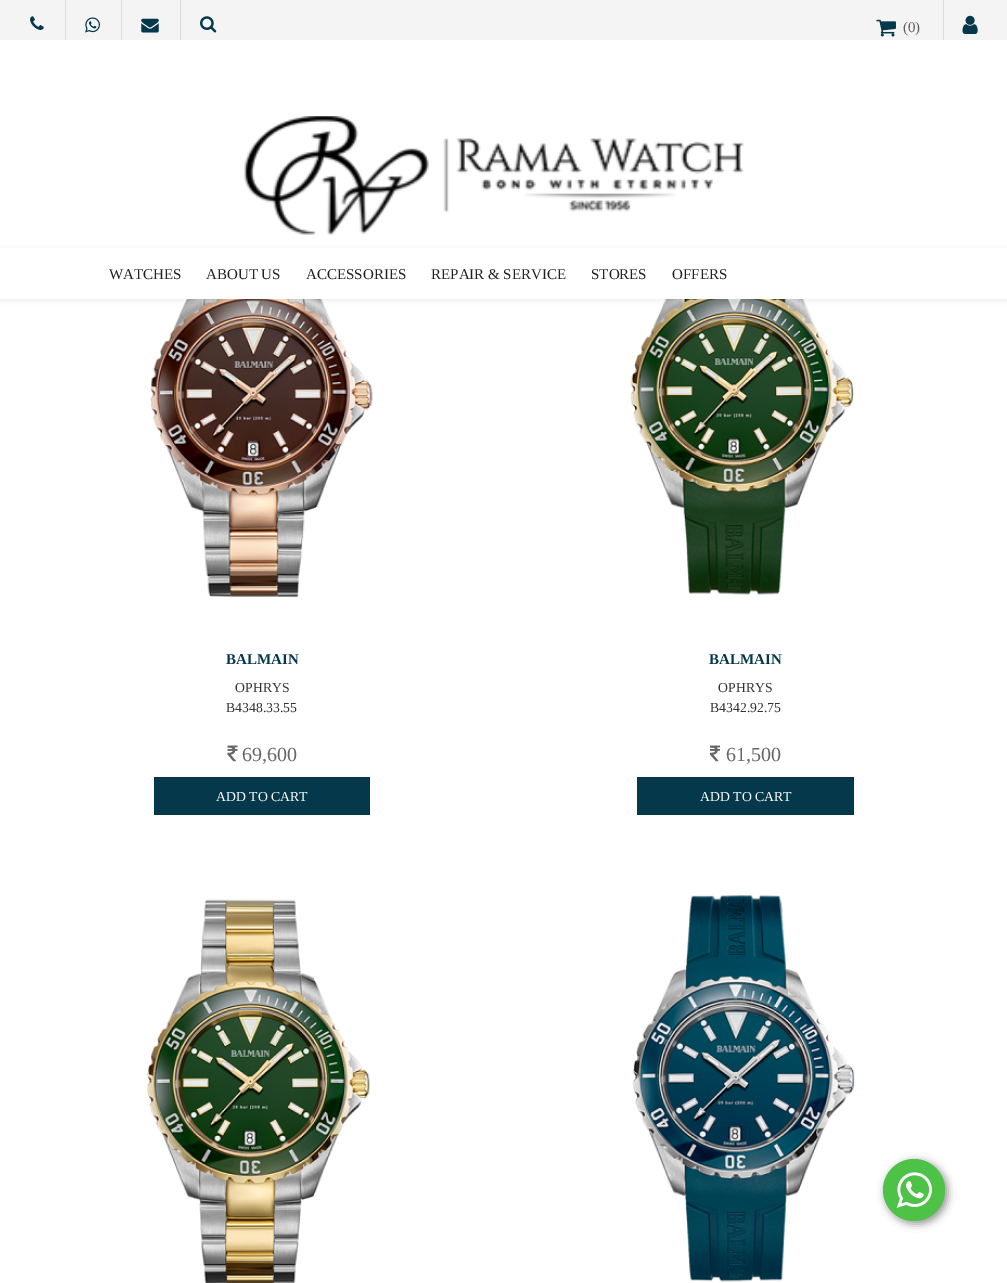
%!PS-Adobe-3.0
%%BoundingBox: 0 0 1007 1283
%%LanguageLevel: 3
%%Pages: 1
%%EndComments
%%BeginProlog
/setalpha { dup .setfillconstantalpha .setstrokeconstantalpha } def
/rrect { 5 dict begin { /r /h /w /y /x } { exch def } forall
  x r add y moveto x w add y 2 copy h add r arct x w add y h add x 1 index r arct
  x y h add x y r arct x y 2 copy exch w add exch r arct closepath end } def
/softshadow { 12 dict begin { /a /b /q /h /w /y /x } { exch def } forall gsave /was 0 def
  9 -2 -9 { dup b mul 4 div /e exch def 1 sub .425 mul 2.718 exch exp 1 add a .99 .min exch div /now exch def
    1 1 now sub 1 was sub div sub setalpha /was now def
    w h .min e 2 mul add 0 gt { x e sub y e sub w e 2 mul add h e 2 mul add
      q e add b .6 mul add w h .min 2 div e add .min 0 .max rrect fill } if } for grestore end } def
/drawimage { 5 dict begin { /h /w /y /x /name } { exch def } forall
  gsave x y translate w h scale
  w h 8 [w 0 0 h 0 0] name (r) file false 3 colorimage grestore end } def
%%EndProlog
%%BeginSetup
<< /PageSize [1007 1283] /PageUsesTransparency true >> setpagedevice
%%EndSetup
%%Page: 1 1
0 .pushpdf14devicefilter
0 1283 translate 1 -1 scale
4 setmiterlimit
1 setgray
0 0 1007 1283 rectfill
0.957 setgray
0 0 1007 40 rectfill
(images/1.raw) 30 16 14 14 drawimage
0.863 setgray
65 0 1 40 rectfill
(images/2.raw) 85 17 15 16 drawimage
121 0 1 40 rectfill
(images/3.raw) 141 18 18 15 drawimage
180 0 1 40 rectfill
(images/4.raw) 200 16 17 17 drawimage
(images/5.raw) 876 19 20 18 drawimage
943 0 1 40 rectfill
(images/6.raw) 962 15 16 19 drawimage
(images/7.raw) 244 116 500 119 drawimage
(images/8.raw) 150 299 223 299 drawimage
(images/10.raw) 630 299 224 296 drawimage
0 setgray
0 249 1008 51 0 3 0.07 softshadow
1 setgray
0 248 1007 51 rectfill
(images/9.raw) 227 745 11 17 drawimage
0.02 0.22 0.294 setrgbcolor
154 777 216 38 rectfill
(images/11.raw) 710 745 10 17 drawimage
637 777 217 38 rectfill
(images/12.raw) 147 899 223 384 drawimage
(images/13.raw) 632 895 223 387 drawimage
0 setgray
885 1161 63 63 31.5 4 0.4 softshadow
0.302 0.761 0.278 setrgbcolor
newpath 914 1190 31 0 360 arc closepath fill
(images/14.raw) 896 1172 36 36 drawimage
/LiberationSerif-Regular [15 0 0 -15 0 0] selectfont
0.373 0.369 0.369 setrgbcolor
903 32 moveto (\(0\)) show
0.133 setgray
109 279 moveto (WATCHES) show
206 279 moveto (ABOUT US) show
306 279 moveto (ACCESSORIES) show
431 279 moveto (REPAIR & SERVICE) show
591 279 moveto (STORES) show
672 279 moveto (OFFERS) show
/LiberationSerif-Bold [15 0 0 -15 0 0] selectfont
0.02 0.22 0.294 setrgbcolor
226 664 moveto (BALMAIN) show
/LiberationSerif-Regular [13.75 0 0 -13.75 0 0] selectfont
0.2 setgray
235 692 moveto (OPHRYS) show
226 712 moveto (B4348.33.55) show
/LiberationSerif-Regular [20 0 0 -20 0 0] selectfont
0.404 setgray
242 761 moveto (69,600) show
/LiberationSerif-Regular [13.75 0 0 -13.75 0 0] selectfont
1 setgray
216 801 moveto (ADD TO CART) show
/LiberationSerif-Bold [15 0 0 -15 0 0] selectfont
0.02 0.22 0.294 setrgbcolor
709 664 moveto (BALMAIN) show
/LiberationSerif-Regular [13.75 0 0 -13.75 0 0] selectfont
0.2 setgray
718 692 moveto (OPHRYS) show
710 712 moveto (B4342.92.75) show
/LiberationSerif-Regular [20 0 0 -20 0 0] selectfont
0.404 setgray
726 761 moveto (61,500) show
/LiberationSerif-Regular [13.75 0 0 -13.75 0 0] selectfont
1 setgray
700 801 moveto (ADD TO CART) show
.poppdf14devicefilter showpage
%%EOF
